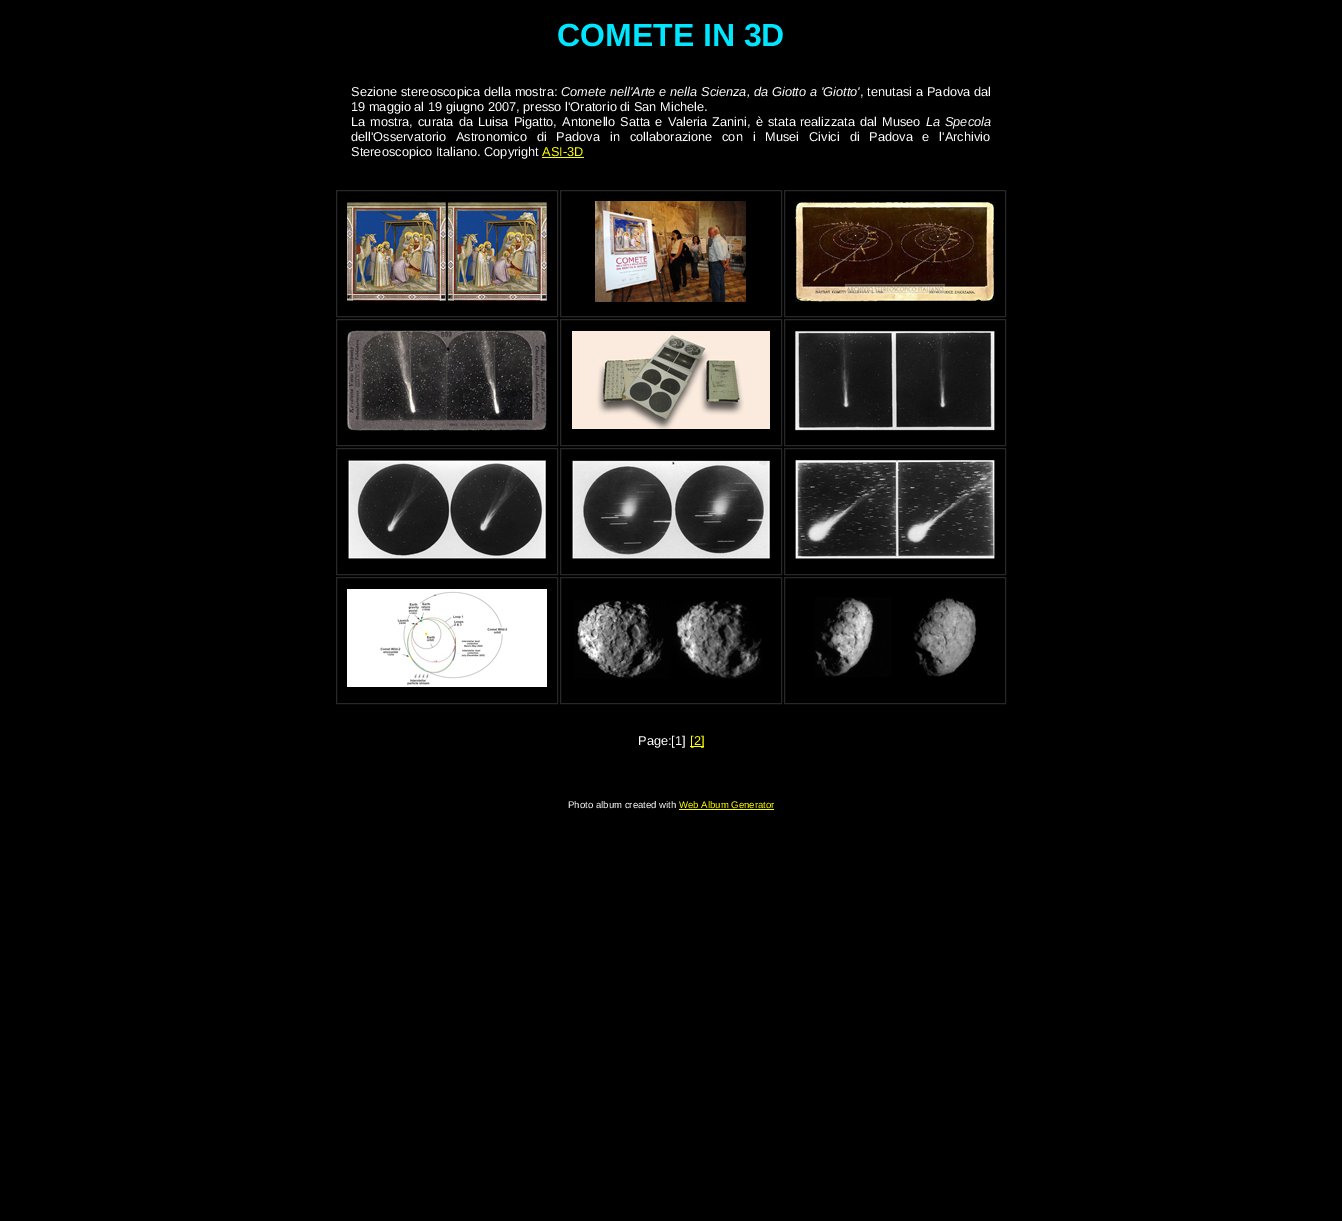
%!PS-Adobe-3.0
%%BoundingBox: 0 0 1342 1221
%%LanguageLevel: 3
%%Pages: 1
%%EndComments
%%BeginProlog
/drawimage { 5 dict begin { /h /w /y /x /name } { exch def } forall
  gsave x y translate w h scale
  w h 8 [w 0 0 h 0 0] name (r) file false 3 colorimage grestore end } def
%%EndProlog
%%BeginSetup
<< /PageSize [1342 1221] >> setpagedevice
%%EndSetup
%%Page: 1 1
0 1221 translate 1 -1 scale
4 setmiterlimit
0 setgray
0 0 1342 1221 rectfill
1 1 0 setrgbcolor
542 157 42 1 rectfill
0.157 setgray
336.5 190.5 221 126 rectstroke
(images/1.raw) 347 202 200 99 drawimage
560.5 190.5 221 126 rectstroke
(images/2.raw) 595 201 152 101 drawimage
784.5 190.5 221 126 rectstroke
(images/3.raw) 795 201 200 101 drawimage
336.5 319.5 221 126 rectstroke
(images/4.raw) 347 330 200 101 drawimage
560.5 319.5 221 126 rectstroke
(images/5.raw) 572 331 198 98 drawimage
784.5 319.5 221 126 rectstroke
(images/6.raw) 795 331 200 100 drawimage
336.5 448.5 221 126 rectstroke
(images/7.raw) 348 460 198 99 drawimage
560.5 448.5 221 126 rectstroke
(images/8.raw) 572 460 198 99 drawimage
784.5 448.5 221 126 rectstroke
(images/9.raw) 795 460 200 99 drawimage
336.5 577.5 221 126 rectstroke
(images/10.raw) 347 589 200 98 drawimage
560.5 577.5 221 126 rectstroke
(images/11.raw) 574 600 188 79 drawimage
784.5 577.5 221 126 rectstroke
(images/12.raw) 815 597 162 80 drawimage
1 1 0 setrgbcolor
690 746 14 1 rectfill
679 809 95 1 rectfill
/LiberationSans-Bold [32 0 0 -32 0 0] selectfont
0 0.902 1 setrgbcolor
557 46 moveto (COMETE IN 3D) show
/LiberationSans-Regular [12.8 0 0 -12.8 0 0] selectfont
1 setgray
351 96 moveto 0.25 0 32 (Sezione stereoscopica della mostra:) widthshow
/LiberationSans-Italic [12.8 0 0 -12.8 0 0] selectfont
561 96 moveto 0.25 0 32 (Comete nell'Arte e nella Scienza, da Giotto a 'Giotto') widthshow
/LiberationSans-Regular [12.8 0 0 -12.8 0 0] selectfont
860 96 moveto 0.25 0 32 (, tenutasi a Padova dal) widthshow
351 111 moveto (19 maggio al 19 giugno 2007, presso l'Oratorio di San Michele.) show
351 126 moveto 1.5 0 32 (La mostra, curata da Luisa Pigatto, Antonello Satta e Valeria Zanini, è stata) widthshow
800 126 moveto 1.5 0 32 (realizzata dal Museo) widthshow
/LiberationSans-Italic [12.8 0 0 -12.8 0 0] selectfont
926 126 moveto 1 0 32 (La Specola) widthshow
/LiberationSans-Regular [12.8 0 0 -12.8 0 0] selectfont
351 141 moveto 6.25 0 32 (dell'Osservatorio Astronomico di Padova) widthshow
610 141 moveto 6.25 0 32 (in collaborazione con i Musei Civici di Padova e l'Archivio) widthshow
351 156 moveto (Stereoscopico Italiano. Copyright) show
1 1 0 setrgbcolor
542 156 moveto (ASI-3D) show
1 setgray
638 745 moveto (Page:[1]) show
1 1 0 setrgbcolor
690 745 moveto ([2]) show
/LiberationSans-Regular [9.6 0 0 -9.6 0 0] selectfont
1 setgray
568 808 moveto (Photo album created with) show
1 1 0 setrgbcolor
679 808 moveto (Web Album Generator) show
showpage
%%EOF
